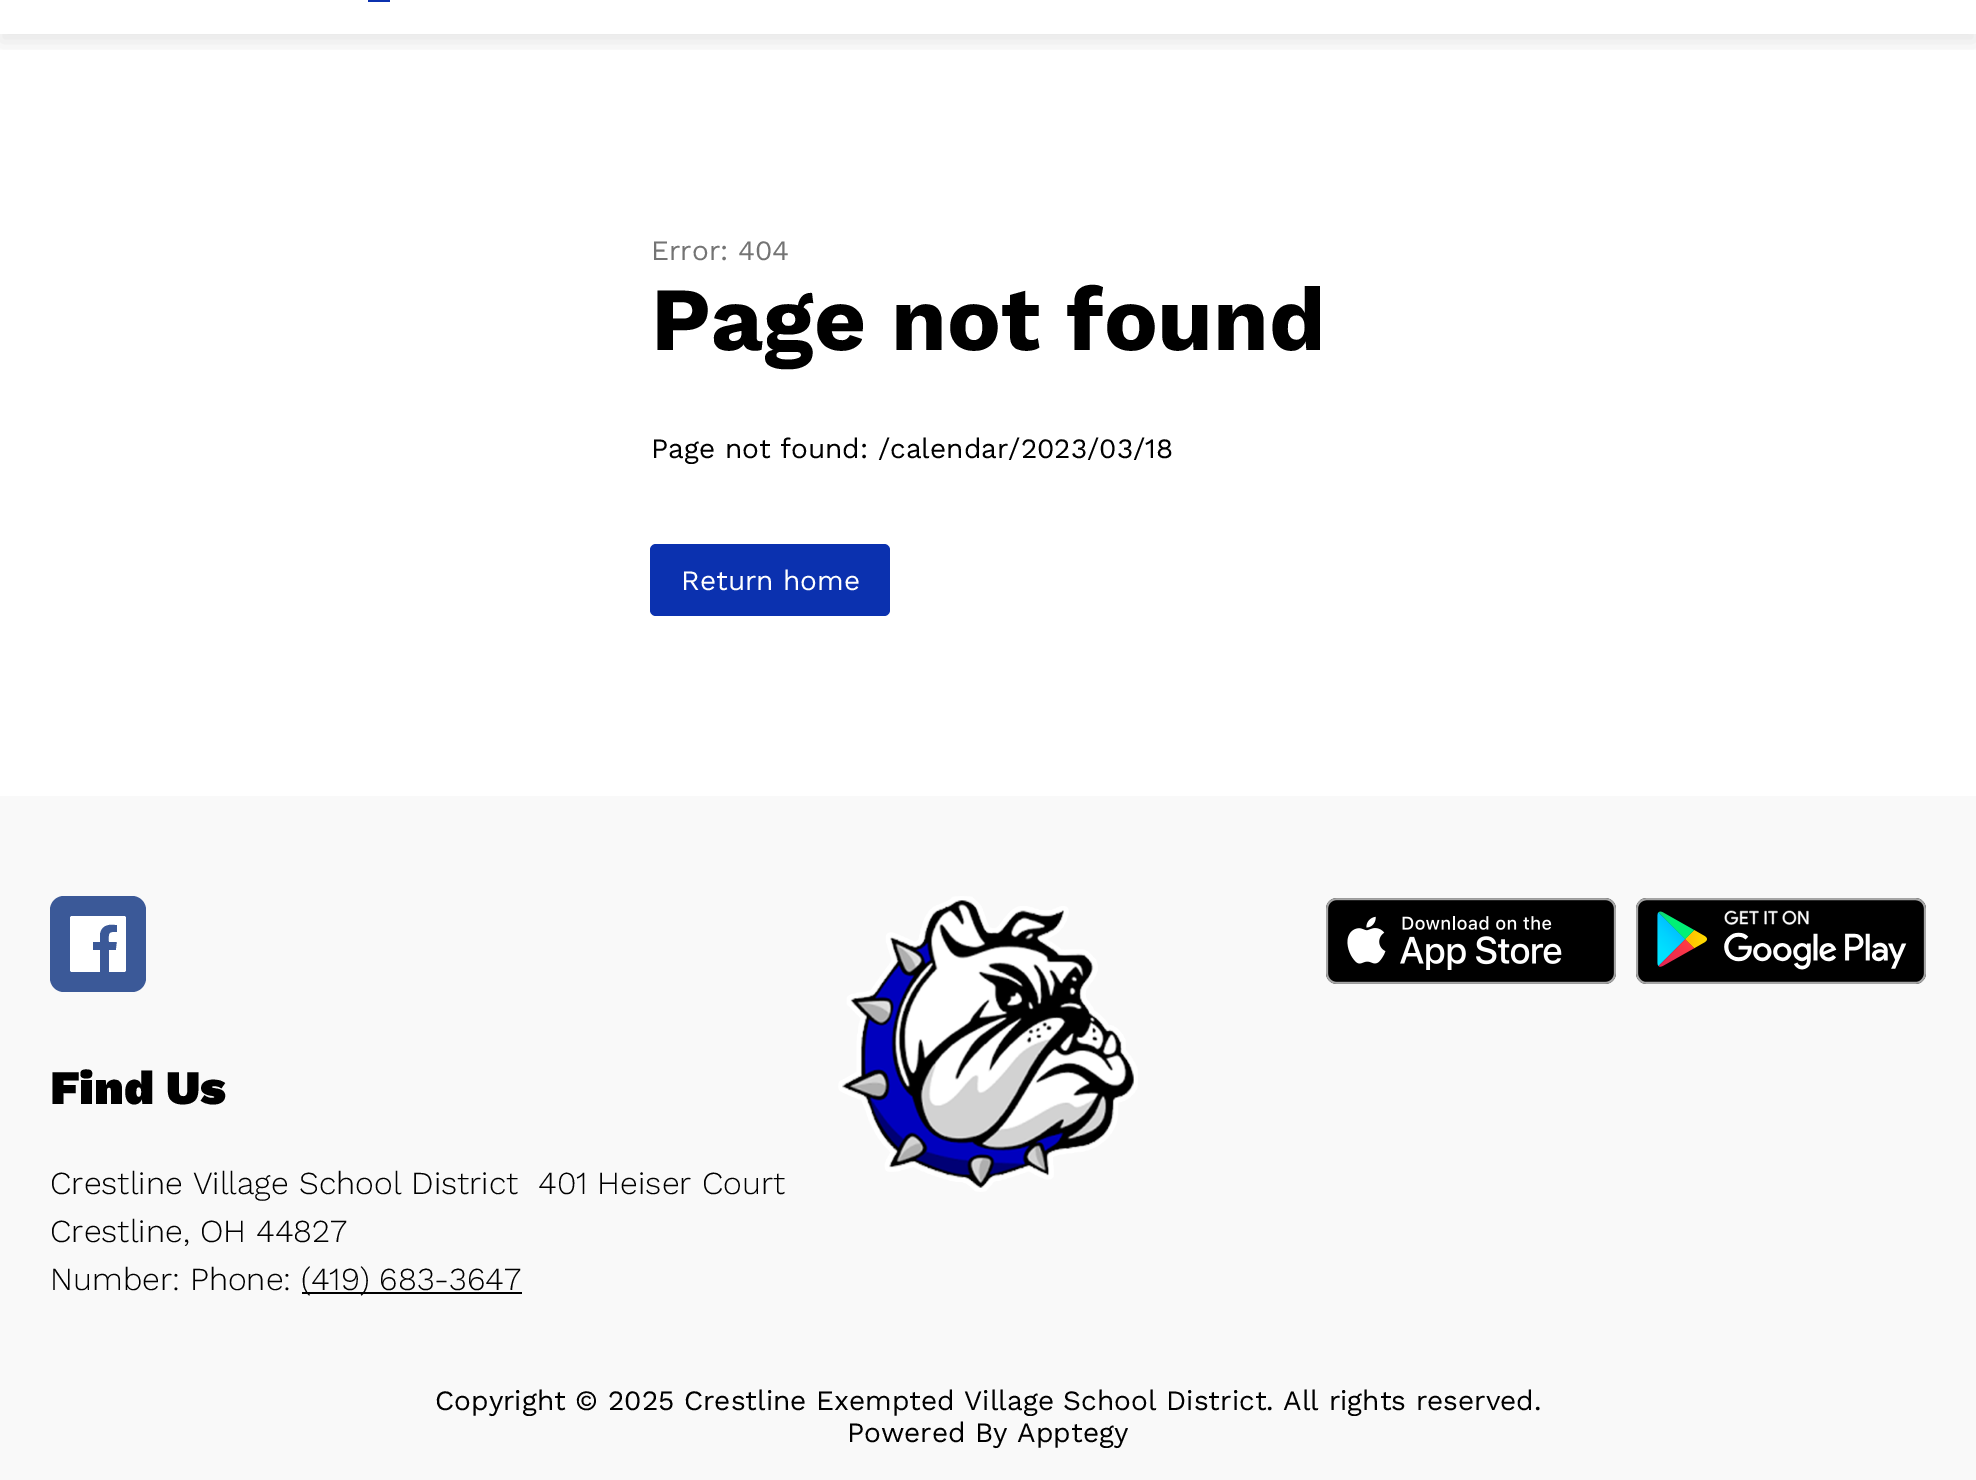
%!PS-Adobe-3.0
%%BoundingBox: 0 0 1976 1480
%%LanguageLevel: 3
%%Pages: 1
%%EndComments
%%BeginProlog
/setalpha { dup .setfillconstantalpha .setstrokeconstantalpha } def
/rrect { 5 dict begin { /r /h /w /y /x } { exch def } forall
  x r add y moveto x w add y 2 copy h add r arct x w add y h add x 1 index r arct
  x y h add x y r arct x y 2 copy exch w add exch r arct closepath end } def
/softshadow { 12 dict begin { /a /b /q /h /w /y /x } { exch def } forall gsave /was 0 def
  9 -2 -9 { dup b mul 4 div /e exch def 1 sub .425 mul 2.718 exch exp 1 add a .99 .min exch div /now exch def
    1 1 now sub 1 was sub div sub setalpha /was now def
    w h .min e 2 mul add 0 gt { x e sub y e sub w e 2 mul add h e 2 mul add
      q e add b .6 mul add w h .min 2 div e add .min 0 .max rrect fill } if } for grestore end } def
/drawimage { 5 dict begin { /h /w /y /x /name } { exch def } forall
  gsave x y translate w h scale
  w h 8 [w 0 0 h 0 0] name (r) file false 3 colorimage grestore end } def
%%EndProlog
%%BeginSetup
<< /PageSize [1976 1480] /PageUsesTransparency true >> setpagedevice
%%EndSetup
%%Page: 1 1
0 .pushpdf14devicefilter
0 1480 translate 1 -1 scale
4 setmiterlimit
1 setgray
0 0 1976 1480 rectfill
gsave
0 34 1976 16 rectclip
0 setgray
0 -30 1976 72 0 10 0.1 softshadow
grestore
0.043 0.192 0.686 setrgbcolor
newpath 368 -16 moveto 390 -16 lineto 390 -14 lineto 368 -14 lineto closepath 368 -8 moveto 390 -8 lineto 390 -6 lineto 368 -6 lineto closepath 390 0 moveto 368 0 lineto 368 2 lineto 390 2 lineto closepath eofill
650 544 240 72 6 rrect fill
0.976 setgray
0 796 1976 684 rectfill
(images/1.raw) 838 896 300 296 drawimage
(images/2.raw) 1326 898 290 86 drawimage
(images/3.raw) 1636 898 290 86 drawimage
0.231 0.349 0.596 setrgbcolor
50 896 96 96 14 rrect fill
1 setgray
newpath 124 916 moveto 72 916 lineto 71 916 70 917 70 918 curveto 70 970 lineto 70 971 71 972 72 972 curveto 124 972 lineto 125 972 126 971 126 970 curveto 126 918 lineto 126 917 125 916 124 916 curveto closepath 117 932 moveto 108 932 109 933 109 942 curveto 117 942 lineto 116 950 lineto 109 950 lineto 109 972 lineto 100 972 lineto 100 950 lineto 93 950 lineto 93 942 lineto 100 942 lineto 100 933 lineto 102 924 110 924 117 925 curveto closepath fill
0 setgray
302 1292 220 2 rectfill
/WorkSans-Regular [28 0 0 -28 0 0] selectfont
0.455 setgray
651 260 moveto (Error: 404) show
/WorkSans-Bold [90 0 0 -90 0 0] selectfont
0 setgray
651 350 moveto (Page not found) show
/WorkSans-Regular [28 0 0 -28 0 0] selectfont
651 458 moveto (Page not found: /calendar/2023/03/18) show
1 setgray
681 590 moveto (Return home) show
/WorkSans-Black [48 0 0 -48 0 0] selectfont
0 setgray
50 1104 moveto (Find Us) show
/WorkSans-Light [32 0 0 -32 0 0] selectfont
50 1194 moveto (Crestline Village School District) show
538 1194 moveto (401 Heiser Court) show
50 1242 moveto (Crestline, OH 44827) show
50 1290 moveto (Number: Phone:) show
301 1290 moveto (\(419\) 683-3647) show
/WorkSans-Regular [28 0 0 -28 0 0] selectfont
435 1410 moveto (Copyright © 2025 Crestline Exempted Village School District. All rights reserved.) show
847 1442 moveto (Powered By Apptegy) show
.poppdf14devicefilter showpage
%%EOF
